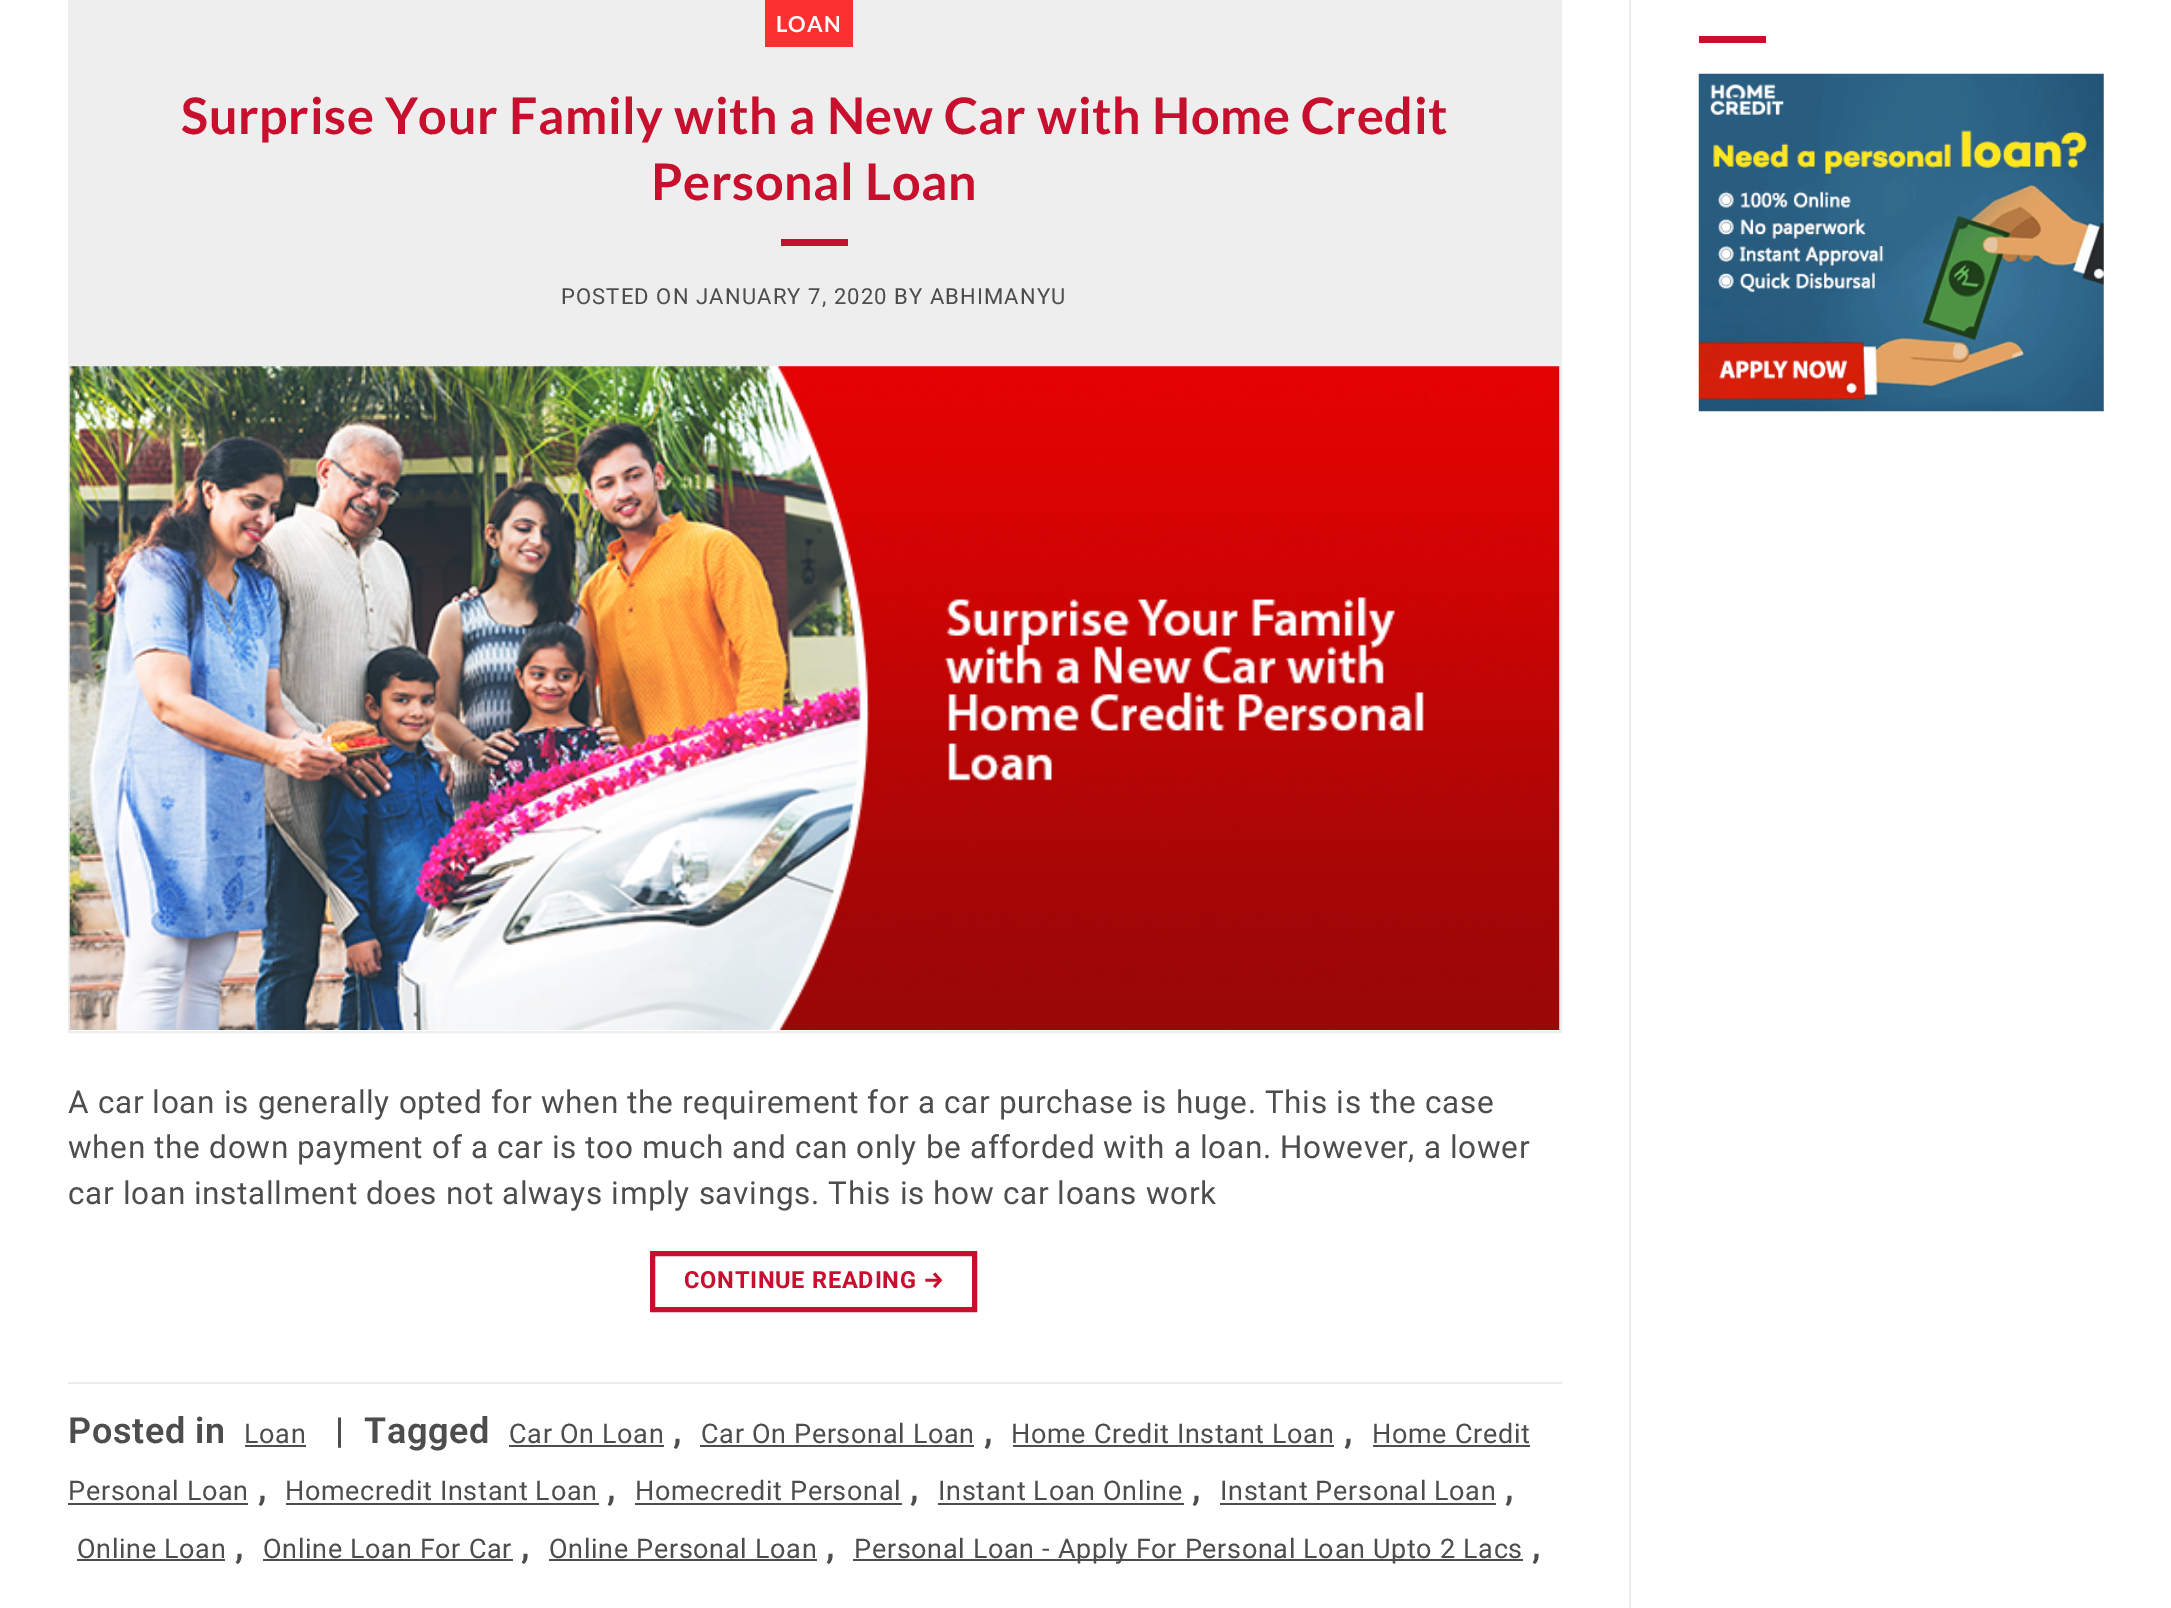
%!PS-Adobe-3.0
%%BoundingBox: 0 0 2171 1608
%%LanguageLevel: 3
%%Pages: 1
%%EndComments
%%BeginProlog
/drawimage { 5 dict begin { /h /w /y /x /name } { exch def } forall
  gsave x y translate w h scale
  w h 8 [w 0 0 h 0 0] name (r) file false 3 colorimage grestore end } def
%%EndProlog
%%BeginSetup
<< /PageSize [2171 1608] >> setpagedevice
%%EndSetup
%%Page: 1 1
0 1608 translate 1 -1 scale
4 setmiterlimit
1 setgray
0 0 2171 1608 rectfill
0.933 setgray
68 0 1494 365 rectfill
0.988 0.188 0.188 setrgbcolor
765 0 88 47 rectfill
0.784 0.063 0.18 setrgbcolor
781 239 67 7 rectfill
0.933 setgray
2 setlinewidth
69 366 1492 666 rectstroke
(images/1.raw) 69 366 1491 664 drawimage
0.784 0.063 0.18 setrgbcolor
5 setlinewidth
652.5 1253.5 322 56 rectstroke
0.925 setgray
68 1382 1494 2 rectfill
0.302 0.302 0.31 setrgbcolor
245 1445 61 2 rectfill
509 1445 155 2 rectfill
700 1445 274 2 rectfill
1013 1445 321 2 rectfill
1373 1445 157 2 rectfill
68 1503 180 2 rectfill
286 1503 313 2 rectfill
635 1503 267 2 rectfill
938 1503 246 2 rectfill
1220 1503 276 2 rectfill
77 1559 148 2 rectfill
263 1559 250 2 rectfill
549 1559 268 2 rectfill
853 1559 670 2 rectfill
0.925 setgray
1629 0 2 1608 rectfill
0.784 0.063 0.18 setrgbcolor
1699 36 67 7 rectfill
(images/2.raw) 1698 73 406 339 drawimage
/Lato-Bold [22.05 0 0 -22.05 0 0] selectfont
0.988 setgray
776 32 moveto 1.1 0 (LOAN) ashow
/Lato-Bold [50.4 0 0 -50.4 0 0] selectfont
0.784 0.063 0.18 setrgbcolor
181 134 moveto 0.67 0 (Surprise Your Family with a New Car with Home Credit) ashow
651 200 moveto 0.67 0 (Personal Loan) ashow
/Roboto-Regular [22.05 0 0 -22.05 0 0] selectfont
0.302 0.302 0.31 setrgbcolor
561 304 moveto 1.1 0 (POSTED ON JANUARY 7, 2020 BY ABHIMANYU) ashow
/Roboto-Regular [31.5 0 0 -31.5 0 0] selectfont
68 1113 moveto 0.67 0 (A car loan is generally opted for when the requirement for a car purchase is huge. This is the case) ashow
68 1158 moveto 0.67 0 (when the down payment of a car is too much and can only be afforded with a loan. However, a lower) ashow
68 1204 moveto 0.67 0 (car loan installment does not always imply savings. This is how car loans work) ashow
/Roboto-Bold [23.6 0 0 -23.6 0 0] selectfont
0.784 0.063 0.18 setrgbcolor
684 1288 moveto 0.75 0 (CONTINUE READING) ashow
/FiraSans-Bold [23.6 0 0 -23.6 0 0] selectfont
923 1288 moveto 0.75 0 (→) ashow
/Roboto-SemiBold [36 0 0 -36 0 0] selectfont
0.302 0.302 0.31 setrgbcolor
68 1443 moveto 0.67 0 (Posted in) ashow
/Roboto-Regular [27 0 0 -27 0 0] selectfont
244 1443 moveto 0.67 0 (Loan) ashow
/Roboto-SemiBold [36 0 0 -36 0 0] selectfont
335 1443 moveto 0.67 0 (|) ashow
364 1443 moveto 0.67 0 (Tagged) ashow
/Roboto-Regular [27 0 0 -27 0 0] selectfont
509 1443 moveto 0.67 0 (Car On Loan) ashow
/Roboto-SemiBold [36 0 0 -36 0 0] selectfont
673 1443 moveto 0.67 0 (,) ashow
/Roboto-Regular [27 0 0 -27 0 0] selectfont
701 1443 moveto 0.67 0 (Car On Personal Loan) ashow
/Roboto-SemiBold [36 0 0 -36 0 0] selectfont
984 1443 moveto 0.67 0 (,) ashow
/Roboto-Regular [27 0 0 -27 0 0] selectfont
1011 1443 moveto 0.67 0 (Home Credit Instant Loan) ashow
/Roboto-SemiBold [36 0 0 -36 0 0] selectfont
1344 1443 moveto 0.67 0 (,) ashow
/Roboto-Regular [27 0 0 -27 0 0] selectfont
1372 1443 moveto 0.67 0 (Home Credit) ashow
68 1500 moveto 0.67 0 (Personal Loan) ashow
/Roboto-SemiBold [36 0 0 -36 0 0] selectfont
258 1500 moveto 0.67 0 (,) ashow
/Roboto-Regular [27 0 0 -27 0 0] selectfont
285 1500 moveto 0.67 0 (Homecredit Instant Loan) ashow
/Roboto-SemiBold [36 0 0 -36 0 0] selectfont
607 1500 moveto 0.67 0 (,) ashow
/Roboto-Regular [27 0 0 -27 0 0] selectfont
635 1500 moveto 0.67 0 (Homecredit Personal) ashow
/Roboto-SemiBold [36 0 0 -36 0 0] selectfont
910 1500 moveto 0.67 0 (,) ashow
/Roboto-Regular [27 0 0 -27 0 0] selectfont
938 1500 moveto 0.67 0 (Instant Loan Online) ashow
/Roboto-SemiBold [36 0 0 -36 0 0] selectfont
1192 1500 moveto 0.67 0 (,) ashow
/Roboto-Regular [27 0 0 -27 0 0] selectfont
1220 1500 moveto 0.67 0 (Instant Personal Loan) ashow
/Roboto-SemiBold [36 0 0 -36 0 0] selectfont
1505 1500 moveto 0.67 0 (,) ashow
/Roboto-Regular [27 0 0 -27 0 0] selectfont
77 1558 moveto 0.67 0 (Online Loan) ashow
/Roboto-SemiBold [36 0 0 -36 0 0] selectfont
235 1558 moveto 0.67 0 (,) ashow
/Roboto-Regular [27 0 0 -27 0 0] selectfont
263 1558 moveto 0.67 0 (Online Loan For Car) ashow
/Roboto-SemiBold [36 0 0 -36 0 0] selectfont
521 1558 moveto 0.67 0 (,) ashow
/Roboto-Regular [27 0 0 -27 0 0] selectfont
549 1558 moveto 0.67 0 (Online Personal Loan) ashow
/Roboto-SemiBold [36 0 0 -36 0 0] selectfont
826 1558 moveto 0.67 0 (,) ashow
/Roboto-Regular [27 0 0 -27 0 0] selectfont
854 1558 moveto 0.67 0 (Personal Loan - Apply For Personal Loan Upto 2 Lacs) ashow
/Roboto-SemiBold [36 0 0 -36 0 0] selectfont
1532 1558 moveto 0.67 0 (,) ashow
showpage
%%EOF
